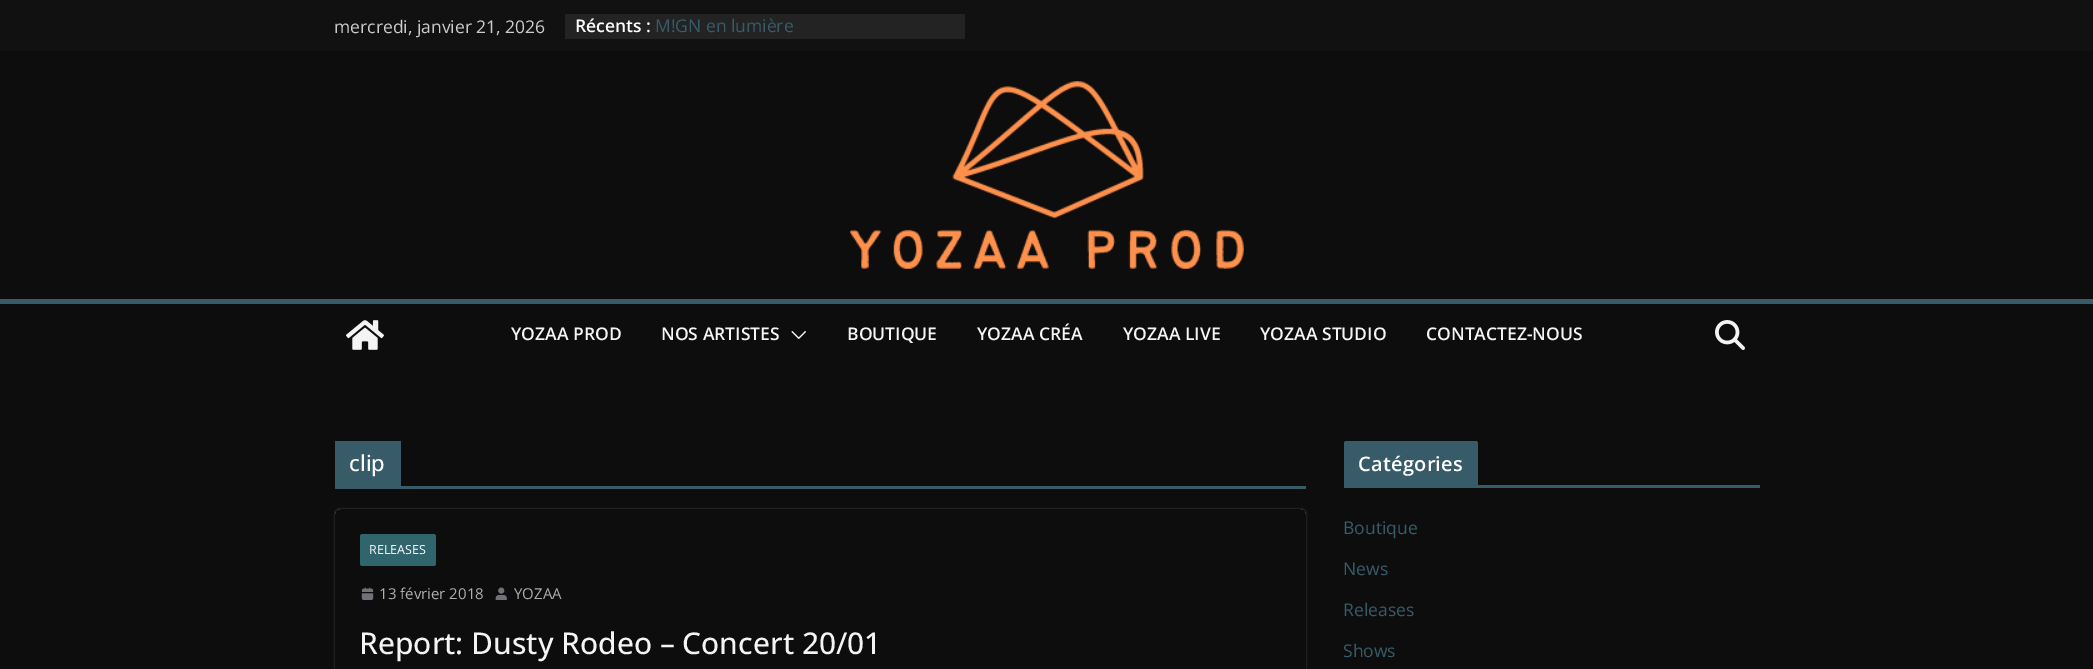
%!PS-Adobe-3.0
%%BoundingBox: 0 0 2093 669
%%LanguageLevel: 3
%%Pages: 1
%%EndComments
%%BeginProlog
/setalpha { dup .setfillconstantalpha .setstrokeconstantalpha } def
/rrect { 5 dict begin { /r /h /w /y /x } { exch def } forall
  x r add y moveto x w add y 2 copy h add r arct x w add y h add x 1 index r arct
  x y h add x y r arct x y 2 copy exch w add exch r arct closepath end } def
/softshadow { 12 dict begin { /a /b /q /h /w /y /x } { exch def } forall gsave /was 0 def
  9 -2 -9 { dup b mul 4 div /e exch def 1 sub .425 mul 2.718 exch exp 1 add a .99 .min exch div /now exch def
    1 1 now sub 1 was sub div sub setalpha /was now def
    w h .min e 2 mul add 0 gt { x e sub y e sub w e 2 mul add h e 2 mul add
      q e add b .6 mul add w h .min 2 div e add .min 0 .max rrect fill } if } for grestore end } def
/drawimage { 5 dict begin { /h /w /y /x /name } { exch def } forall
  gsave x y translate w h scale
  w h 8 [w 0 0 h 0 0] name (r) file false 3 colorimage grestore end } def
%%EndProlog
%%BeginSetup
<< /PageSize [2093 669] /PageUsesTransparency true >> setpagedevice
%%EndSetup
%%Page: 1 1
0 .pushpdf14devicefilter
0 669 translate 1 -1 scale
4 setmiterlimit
0.051 setgray
0 0 2093 669 rectfill
0.067 setgray
0 0 2093 51 rectfill
0.137 setgray
565 14 400 25 rectfill
(images/1.raw) 850 81 394 188 drawimage
0.216 0.357 0.412 setrgbcolor
0 299 2093 5 rectfill
(images/2.raw) 346 320 38 30 drawimage
(images/3.raw) 791 331 15 8 drawimage
(images/4.raw) 1715 320 30 30 drawimage
335 486 971 3 rectfill
335 441 66 45 rectfill
gsave
newpath 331 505 moveto 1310 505 lineto 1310 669 lineto 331 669 lineto closepath 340 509 moveto 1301 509 lineto 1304 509 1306 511 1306 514 curveto 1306 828 lineto 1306 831 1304 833 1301 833 curveto 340 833 lineto 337 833 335 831 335 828 curveto 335 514 lineto 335 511 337 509 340 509 curveto closepath eoclip newpath
1 setgray
335 509 971 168 5 1 0.24 softshadow
grestore
0.188 0.396 0.427 setrgbcolor
360 534 76 32 2.5 rrect fill
(images/5.raw) 361 587 13 13 drawimage
(images/6.raw) 495 587 12 13 drawimage
0.216 0.357 0.412 setrgbcolor
1344 485 416 3 rectfill
newpath 1346.5 441 moveto 1475.5 441 lineto 1477 441 1478 442 1478 443.5 curveto 1478 485 lineto 1344 485 lineto 1344 443.5 lineto 1344 442 1345 441 1346.5 441 curveto closepath fill
/OpenSans-Regular [17.5 0 0 -17.5 0 0] selectfont
0.8 setgray
334 33 moveto (mercredi, janvier 21, 2026) show
/OpenSans-SemiBold [17.5 0 0 -17.5 0 0] selectfont
1 setgray
575 32 moveto (Récents :) show
/OpenSans-Regular [17.5 0 0 -17.5 0 0] selectfont
0.216 0.357 0.412 setrgbcolor
655 32 moveto (M!GN en lumière) show
/OpenSans-SemiBold [17.5 0 0 -17.5 0 0] selectfont
0.957 0.957 0.961 setrgbcolor
511 340 moveto (YOZAA PROD) show
661 340 moveto (NOS ARTISTES) show
847 340 moveto (BOUTIQUE) show
977 340 moveto (YOZAA CRÉA) show
1123 340 moveto (YOZAA LIVE) show
1260 340 moveto (YOZAA STUDIO) show
1426 340 moveto (CONTACTEZ-NOUS) show
/OpenSans-Medium [22 0 0 -22 0 0] selectfont
1 setgray
349 471 moveto (clip) show
/OpenSans-Regular [12.5 0 0 -12.5 0 0] selectfont
369 554 moveto (RELEASES) show
/OpenSans-Regular [15 0 0 -15 0 0] selectfont
0.682 setgray
379 599 moveto (13 février 2018) show
514 599 moveto (YOZAA) show
/OpenSans-Medium [30 0 0 -30 0 0] selectfont
0.957 0.957 0.961 setrgbcolor
359 654 moveto (Report: Dusty Rodeo – Concert 20/01) show
/OpenSans-SemiBold [20 0 0 -20 0 0] selectfont
1 setgray
1358 471 moveto 0.25 0 (Catégories) ashow
/OpenSans-Regular [17.5 0 0 -17.5 0 0] selectfont
0.216 0.357 0.412 setrgbcolor
1343 534 moveto (Boutique) show
1343 575 moveto (News) show
1343 616 moveto (Releases) show
1343 657 moveto (Shows) show
.poppdf14devicefilter showpage
%%EOF
